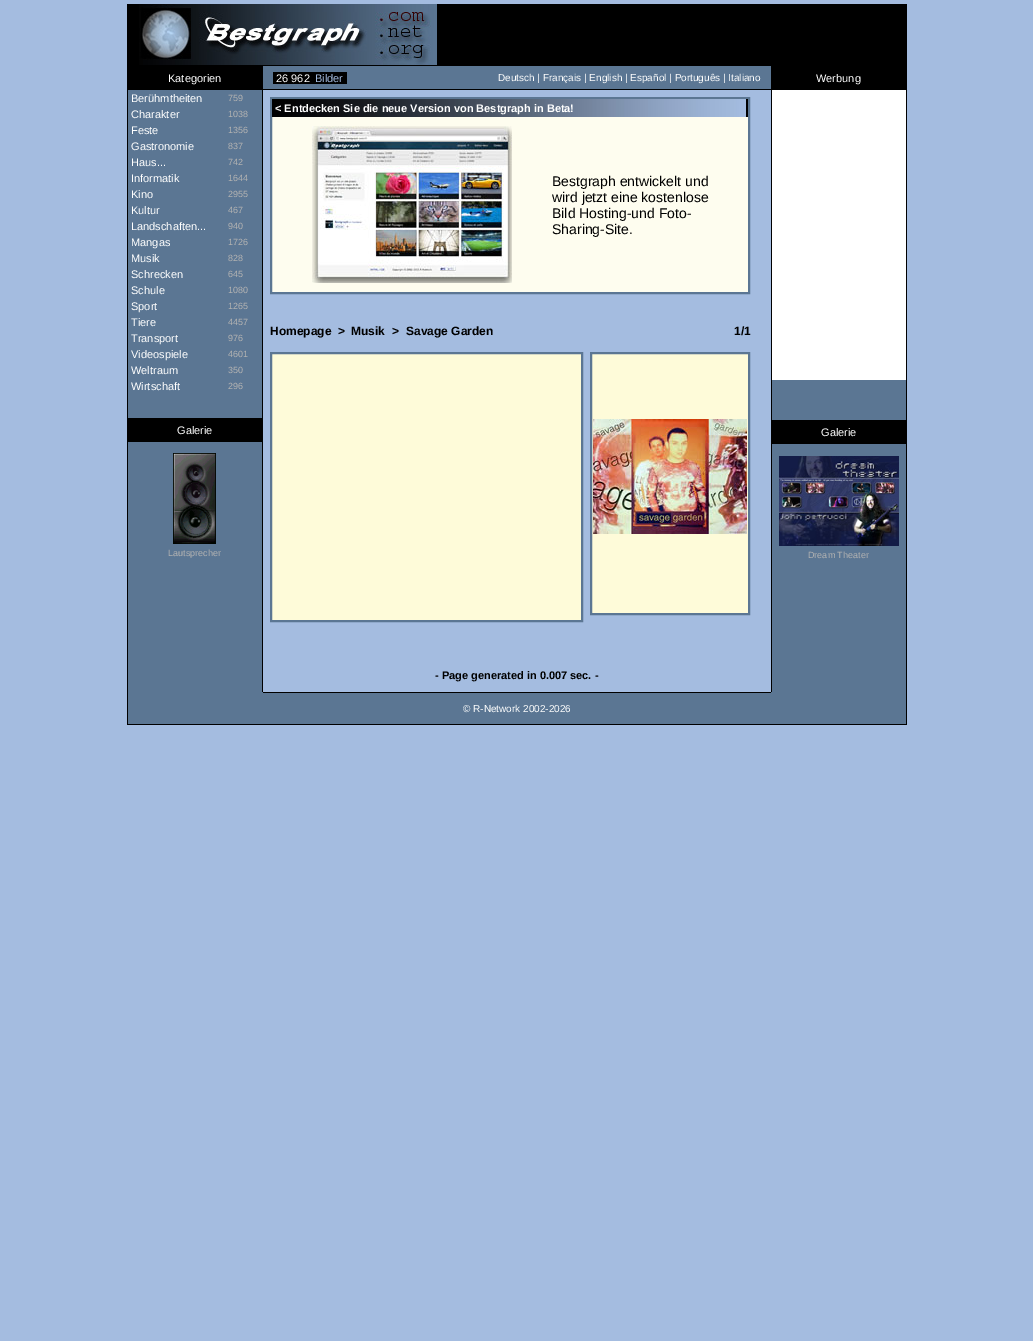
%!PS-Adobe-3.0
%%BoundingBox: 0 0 1033 1341
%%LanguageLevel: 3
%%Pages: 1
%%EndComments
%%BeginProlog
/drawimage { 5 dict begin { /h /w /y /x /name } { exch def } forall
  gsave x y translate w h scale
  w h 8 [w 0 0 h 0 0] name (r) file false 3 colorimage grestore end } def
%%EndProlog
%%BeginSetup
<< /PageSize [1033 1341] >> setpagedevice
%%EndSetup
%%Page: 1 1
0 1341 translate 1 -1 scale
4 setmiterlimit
0.643 0.737 0.878 setrgbcolor
0 0 1033 1341 rectfill
0 setgray
127 4 780 62 rectfill
(images/1.raw) 139 4 298 61 drawimage
0.357 0.463 0.576 setrgbcolor
263 66 508 23 rectfill
0 setgray
127 66 136 24 rectfill
273 72 74 12 rectfill
771 66 136 24 rectfill
263 89 508 1 rectfill
0.357 0.463 0.576 setrgbcolor
128 90 778 634 rectfill
0 setgray
262 90 1 602 rectfill
127 90 1 602 rectfill
128 418 134 24 rectfill
(images/2.raw) 173 453 43 91 drawimage
0.643 0.737 0.878 setrgbcolor
263 90 508 602 rectfill
0.996 0.992 0.937 setrgbcolor
272 117 476 175 rectfill
0.357 0.463 0.576 setrgbcolor
2 setlinewidth
271 98 478 195 rectstroke
(images/3.raw) 272 99 476 18 drawimage
(images/4.raw) 312 126 200 157 drawimage
0.996 0.984 0.851 setrgbcolor
newpath 271 353 moveto 582 353 lineto 582 621 lineto 271 621 lineto closepath gsave fill grestore
0.357 0.463 0.576 setrgbcolor
stroke
0.996 0.984 0.851 setrgbcolor
newpath 591 353 moveto 749 353 lineto 749 614 lineto 591 614 lineto closepath gsave fill grestore
0.357 0.463 0.576 setrgbcolor
stroke
(images/5.raw) 593 419 154 115 drawimage
0 setgray
906 90 1 635 rectfill
771 90 1 602 rectfill
1 setgray
772 90 134 290 rectfill
0 setgray
772 420 134 24 rectfill
(images/6.raw) 779 456 120 90 drawimage
127 724 780 1 rectfill
127 692 1 33 rectfill
263 692 508 1 rectfill
/LiberationSans-Regular [11 0 0 -11 0 0] selectfont
1 setgray
168 82 moveto (Kategorien) show
276 82 moveto (26 962) show
0.643 0.737 0.878 setrgbcolor
315 82 moveto (Bilder) show
/LiberationSans-Regular [10 0 0 -10 0 0] selectfont
1 setgray
498 81 moveto (Deutsch | Français | English | Español | Português | Italiano) show
/LiberationSans-Regular [11 0 0 -11 0 0] selectfont
816 82 moveto (Werbung) show
131 102 moveto (Berühmtheiten) show
/LiberationSans-Regular [9 0 0 -9 0 0] selectfont
0.698 setgray
228 101 moveto (759) show
/LiberationSans-Regular [11 0 0 -11 0 0] selectfont
1 setgray
131 118 moveto (Charakter) show
/LiberationSans-Regular [9 0 0 -9 0 0] selectfont
0.698 setgray
228 117 moveto (1038) show
/LiberationSans-Regular [11 0 0 -11 0 0] selectfont
1 setgray
131 134 moveto (Feste) show
/LiberationSans-Regular [9 0 0 -9 0 0] selectfont
0.698 setgray
228 133 moveto (1356) show
/LiberationSans-Regular [11 0 0 -11 0 0] selectfont
1 setgray
131 150 moveto (Gastronomie) show
/LiberationSans-Regular [9 0 0 -9 0 0] selectfont
0.698 setgray
228 149 moveto (837) show
/LiberationSans-Regular [11 0 0 -11 0 0] selectfont
1 setgray
131 166 moveto (Haus...) show
/LiberationSans-Regular [9 0 0 -9 0 0] selectfont
0.698 setgray
228 165 moveto (742) show
/LiberationSans-Regular [11 0 0 -11 0 0] selectfont
1 setgray
131 182 moveto (Informatik) show
/LiberationSans-Regular [9 0 0 -9 0 0] selectfont
0.698 setgray
228 181 moveto (1644) show
/LiberationSans-Regular [11 0 0 -11 0 0] selectfont
1 setgray
131 198 moveto (Kino) show
/LiberationSans-Regular [9 0 0 -9 0 0] selectfont
0.698 setgray
228 197 moveto (2955) show
/LiberationSans-Regular [11 0 0 -11 0 0] selectfont
1 setgray
131 214 moveto (Kultur) show
/LiberationSans-Regular [9 0 0 -9 0 0] selectfont
0.698 setgray
228 213 moveto (467) show
/LiberationSans-Regular [11 0 0 -11 0 0] selectfont
1 setgray
131 230 moveto (Landschaften...) show
/LiberationSans-Regular [9 0 0 -9 0 0] selectfont
0.698 setgray
228 229 moveto (940) show
/LiberationSans-Regular [11 0 0 -11 0 0] selectfont
1 setgray
131 246 moveto (Mangas) show
/LiberationSans-Regular [9 0 0 -9 0 0] selectfont
0.698 setgray
228 245 moveto (1726) show
/LiberationSans-Regular [11 0 0 -11 0 0] selectfont
1 setgray
131 262 moveto (Musik) show
/LiberationSans-Regular [9 0 0 -9 0 0] selectfont
0.698 setgray
228 261 moveto (828) show
/LiberationSans-Regular [11 0 0 -11 0 0] selectfont
1 setgray
131 278 moveto (Schrecken) show
/LiberationSans-Regular [9 0 0 -9 0 0] selectfont
0.698 setgray
228 277 moveto (645) show
/LiberationSans-Regular [11 0 0 -11 0 0] selectfont
1 setgray
131 294 moveto (Schule) show
/LiberationSans-Regular [9 0 0 -9 0 0] selectfont
0.698 setgray
228 293 moveto (1080) show
/LiberationSans-Regular [11 0 0 -11 0 0] selectfont
1 setgray
131 310 moveto (Sport) show
/LiberationSans-Regular [9 0 0 -9 0 0] selectfont
0.698 setgray
228 309 moveto (1265) show
/LiberationSans-Regular [11 0 0 -11 0 0] selectfont
1 setgray
131 326 moveto (Tiere) show
/LiberationSans-Regular [9 0 0 -9 0 0] selectfont
0.698 setgray
228 325 moveto (4457) show
/LiberationSans-Regular [11 0 0 -11 0 0] selectfont
1 setgray
131 342 moveto (Transport) show
/LiberationSans-Regular [9 0 0 -9 0 0] selectfont
0.698 setgray
228 341 moveto (976) show
/LiberationSans-Regular [11 0 0 -11 0 0] selectfont
1 setgray
131 358 moveto (Videospiele) show
/LiberationSans-Regular [9 0 0 -9 0 0] selectfont
0.698 setgray
228 357 moveto (4601) show
/LiberationSans-Regular [11 0 0 -11 0 0] selectfont
1 setgray
131 374 moveto (Weltraum) show
/LiberationSans-Regular [9 0 0 -9 0 0] selectfont
0.698 setgray
228 373 moveto (350) show
/LiberationSans-Regular [11 0 0 -11 0 0] selectfont
1 setgray
131 390 moveto (Wirtschaft) show
/LiberationSans-Regular [9 0 0 -9 0 0] selectfont
0.698 setgray
228 389 moveto (296) show
/LiberationSans-Regular [11 0 0 -11 0 0] selectfont
1 setgray
177 434 moveto (Galerie) show
/LiberationSans-Regular [9 0 0 -9 0 0] selectfont
0.698 setgray
168 556 moveto (Lautsprecher) show
/LiberationSans-Bold [11 0 0 -11 0 0] selectfont
1 setgray
275 112 moveto (< Entdecken Sie die neue Version von Bestgraph in Beta!) show
/LiberationSans-Regular [14 0 0 -14 0 0] selectfont
0 setgray
552 186 moveto (Bestgraph entwickelt und) show
552 202 moveto (wird jetzt eine kostenlose) show
552 218 moveto (Bild Hosting-und Foto-) show
552 234 moveto (Sharing-Site.) show
/LiberationSans-Bold [12 0 0 -12 0 0] selectfont
270 335 moveto (Homepage) show
338 335 moveto (>) show
351 335 moveto (Musik) show
392 335 moveto (>) show
406 335 moveto (Savage Garden) show
734 335 moveto (1/1) show
/LiberationSans-Regular [11 0 0 -11 0 0] selectfont
1 setgray
821 436 moveto (Galerie) show
/LiberationSans-Regular [9 0 0 -9 0 0] selectfont
0.698 setgray
808 558 moveto (Dream Theater) show
/LiberationSans-Bold [11 0 0 -11 0 0] selectfont
0 setgray
435 679 moveto (- Page generated in 0.007 sec. -) show
/LiberationSans-Regular [10 0 0 -10 0 0] selectfont
1 setgray
463 712 moveto (© R-Network 2002-2026) show
showpage
%%EOF
